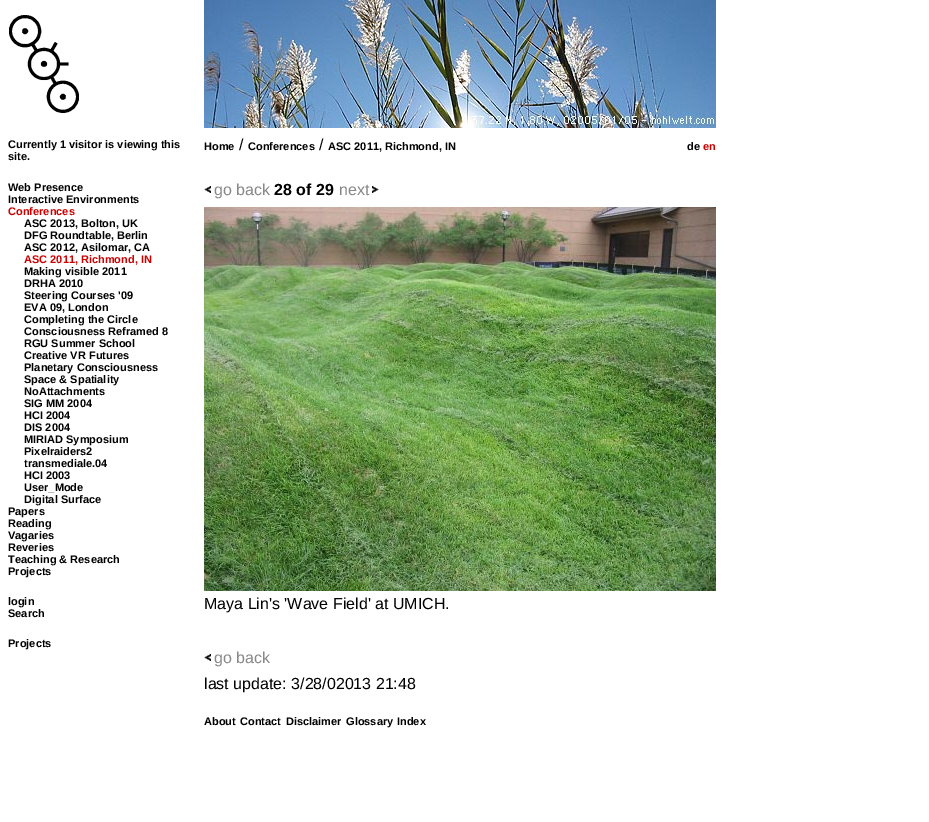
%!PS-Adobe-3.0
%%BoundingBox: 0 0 929 822
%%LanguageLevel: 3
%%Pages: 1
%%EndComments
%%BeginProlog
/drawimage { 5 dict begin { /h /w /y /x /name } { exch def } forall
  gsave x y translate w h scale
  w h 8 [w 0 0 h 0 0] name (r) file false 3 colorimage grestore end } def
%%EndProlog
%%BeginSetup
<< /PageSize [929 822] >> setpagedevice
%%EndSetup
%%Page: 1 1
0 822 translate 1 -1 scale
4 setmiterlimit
1 setgray
0 0 929 822 rectfill
(images/1.raw) 9 15 70 98 drawimage
(images/2.raw) 204 0 512 128 drawimage
(images/3.raw) 204 186 7 7 drawimage
(images/4.raw) 372 186 7 7 drawimage
(images/5.raw) 204 207 512 384 drawimage
(images/3.raw) 204 654 7 7 drawimage
/LiberationSans-Bold [11 0 0 -11 0 0] selectfont
0 setgray
8 148 moveto (Currently 1 visitor is viewing this) show
8 160 moveto (site.) show
204 150 moveto (Home) show
/LiberationSans-Regular [16 0 0 -16 0 0] selectfont
239 150 moveto (/) show
/LiberationSans-Bold [11 0 0 -11 0 0] selectfont
248 150 moveto (Conferences) show
/LiberationSans-Regular [16 0 0 -16 0 0] selectfont
319 150 moveto (/) show
/LiberationSans-Bold [11 0 0 -11 0 0] selectfont
328 150 moveto (ASC 2011, Richmond, IN) show
687 150 moveto (de) show
0.8 0 0 setrgbcolor
703 150 moveto (en) show
0 setgray
8 191 moveto (Web Presence) show
8 203 moveto (Interactive Environments) show
0.8 0 0 setrgbcolor
8 215 moveto (Conferences) show
0 setgray
24 227 moveto (ASC 2013, Bolton, UK) show
24 239 moveto (DFG Roundtable, Berlin) show
24 251 moveto (ASC 2012, Asilomar, CA) show
0.8 0 0 setrgbcolor
24 263 moveto (ASC 2011, Richmond, IN) show
0 setgray
24 275 moveto (Making visible 2011) show
24 287 moveto (DRHA 2010) show
24 299 moveto (Steering Courses '09) show
24 311 moveto (EVA 09, London) show
24 323 moveto (Completing the Circle) show
24 335 moveto (Consciousness Reframed 8) show
24 347 moveto (RGU Summer School) show
24 359 moveto (Creative VR Futures) show
24 371 moveto (Planetary Consciousness) show
24 383 moveto (Space & Spatiality) show
24 395 moveto (NoAttachments) show
24 407 moveto (SIG MM 2004) show
24 419 moveto (HCI 2004) show
24 431 moveto (DIS 2004) show
24 443 moveto (MIRIAD Symposium) show
24 455 moveto (Pixelraiders2) show
24 467 moveto (transmediale.04) show
24 479 moveto (HCI 2003) show
24 491 moveto (User_Mode) show
24 503 moveto (Digital Surface) show
8 515 moveto (Papers) show
8 527 moveto (Reading) show
8 539 moveto (Vagaries) show
8 551 moveto (Reveries) show
8 563 moveto (Teaching & Research) show
8 575 moveto (Projects) show
8 605 moveto (login) show
8 617 moveto (Search) show
8 647 moveto (Projects) show
/LiberationSans-Regular [16 0 0 -16 0 0] selectfont
0.533 setgray
214 195 moveto (go back) show
/LiberationSans-Bold [16 0 0 -16 0 0] selectfont
0 setgray
274 195 moveto (28 of 29) show
/LiberationSans-Regular [16 0 0 -16 0 0] selectfont
0.533 setgray
339 195 moveto (next) show
0 setgray
204 609 moveto (Maya Lin's 'Wave Field' at UMICH.) show
0.533 setgray
214 663 moveto (go back) show
0 setgray
204 689 moveto (last update: 3/28/02013 21:48) show
/LiberationSans-Bold [11 0 0 -11 0 0] selectfont
204 725 moveto (About) show
240 725 moveto (Contact) show
286 725 moveto (Disclaimer) show
346 725 moveto (Glossary) show
397 725 moveto (Index) show
showpage
%%EOF
